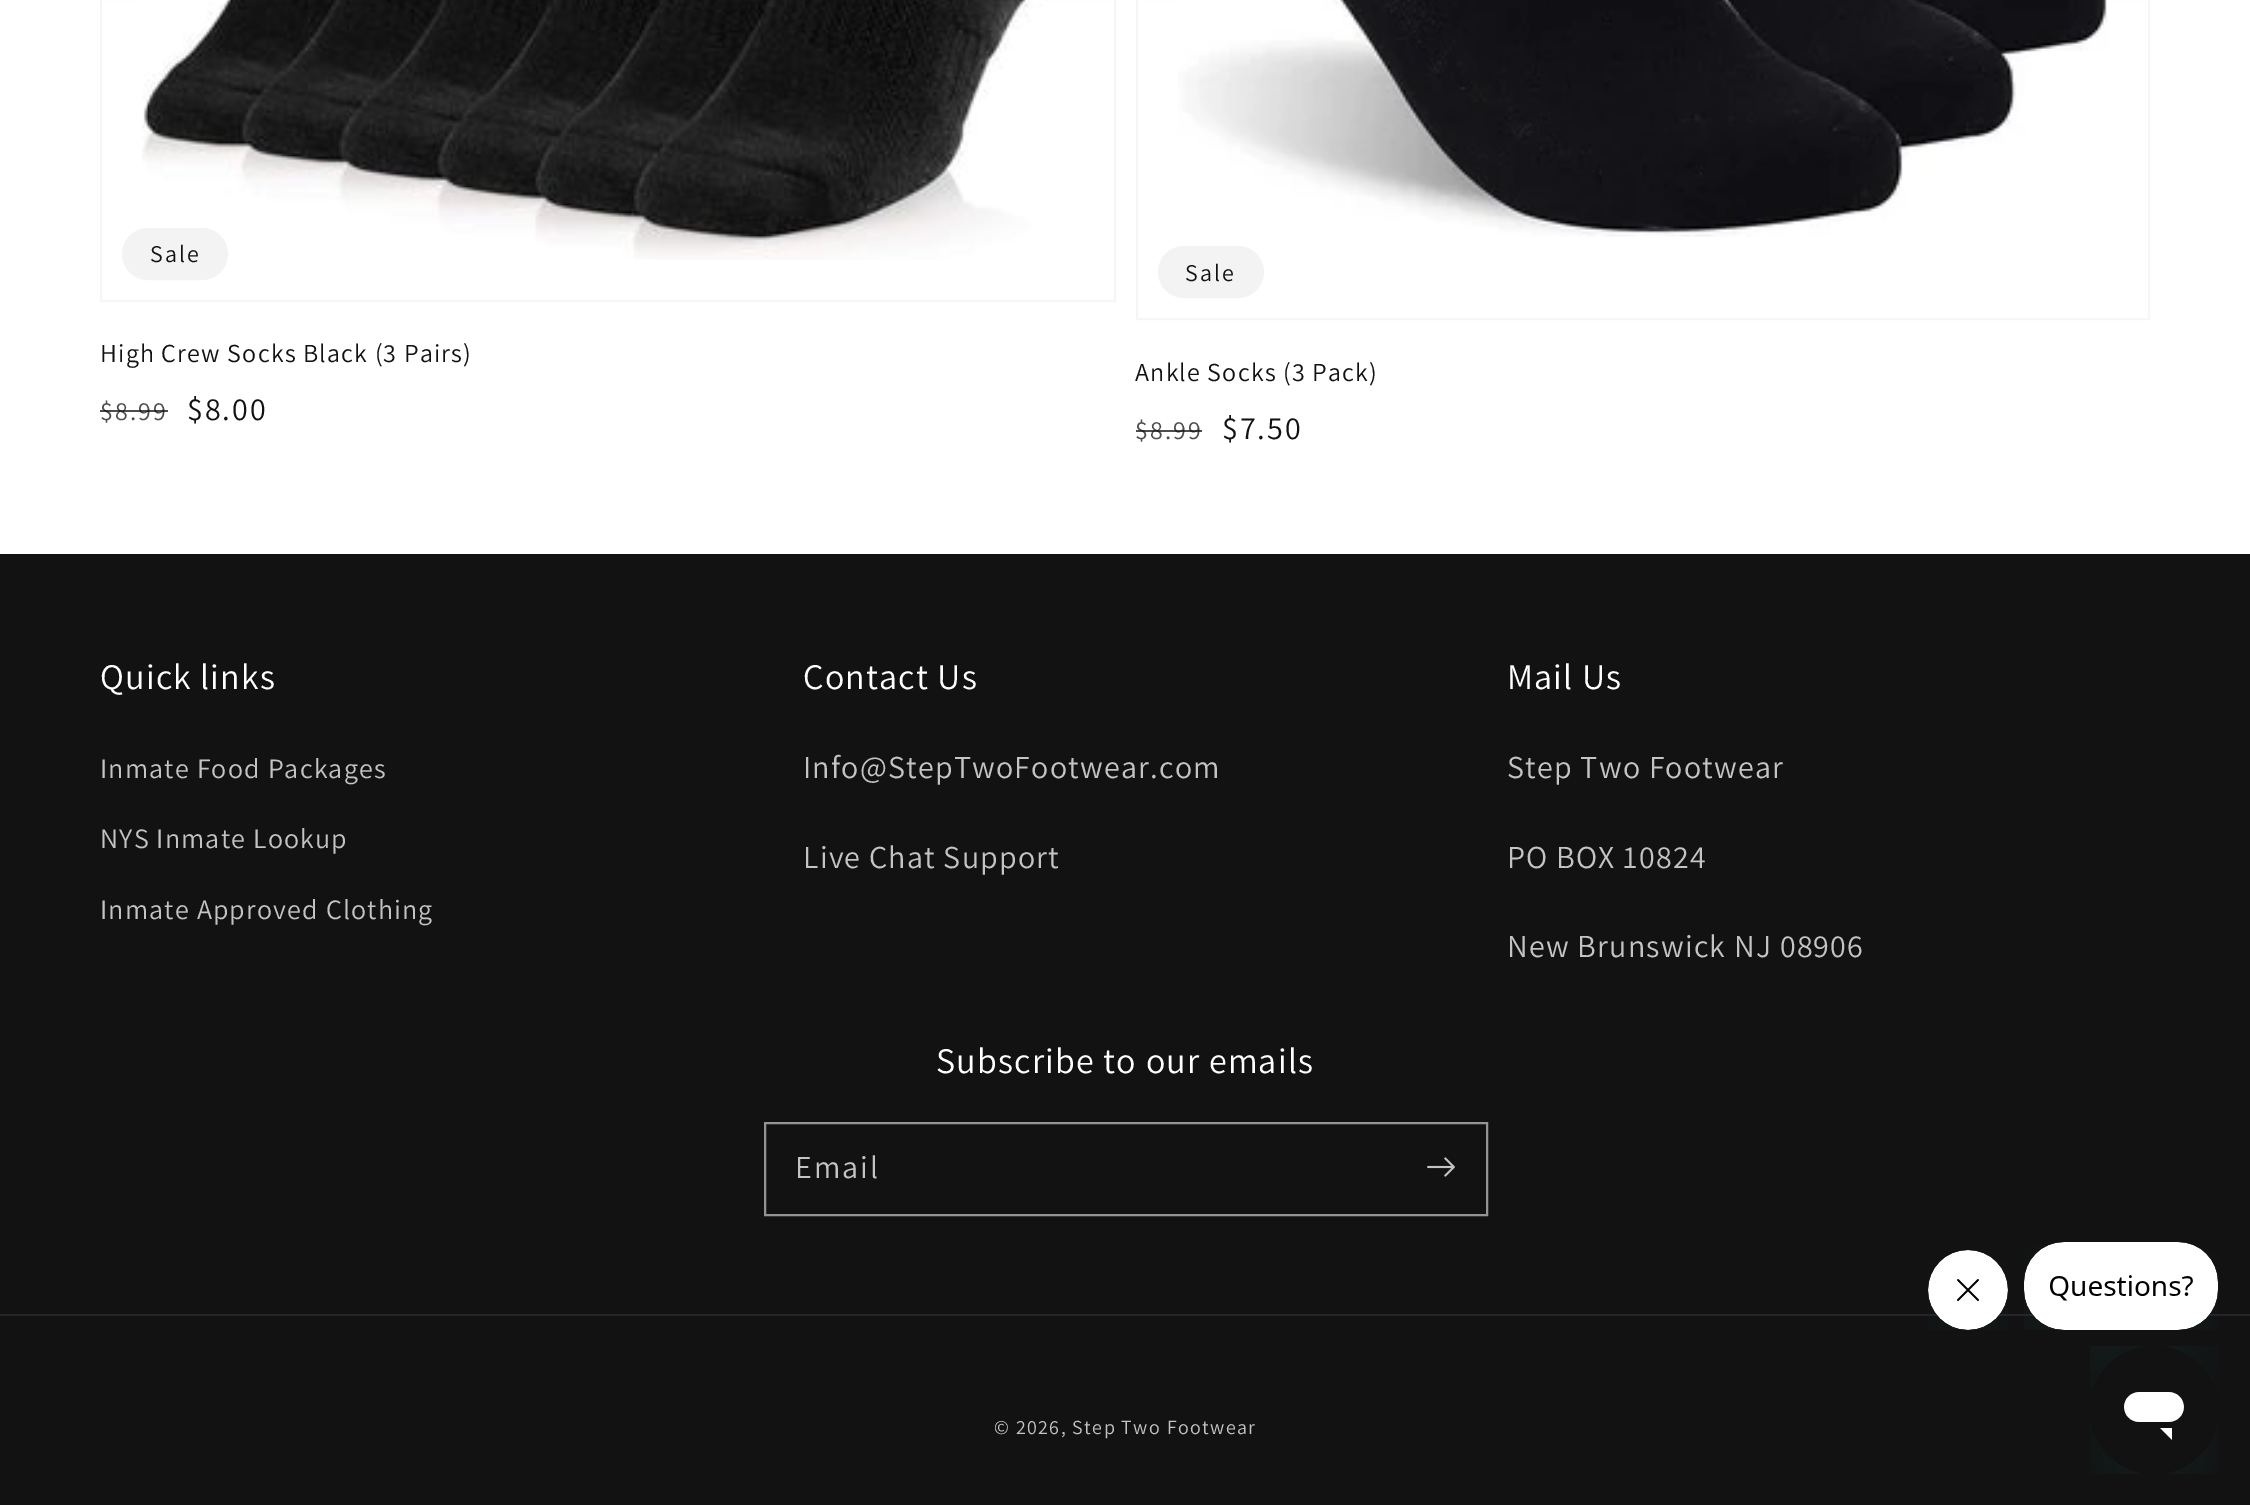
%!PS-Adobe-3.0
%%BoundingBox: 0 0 2250 1505
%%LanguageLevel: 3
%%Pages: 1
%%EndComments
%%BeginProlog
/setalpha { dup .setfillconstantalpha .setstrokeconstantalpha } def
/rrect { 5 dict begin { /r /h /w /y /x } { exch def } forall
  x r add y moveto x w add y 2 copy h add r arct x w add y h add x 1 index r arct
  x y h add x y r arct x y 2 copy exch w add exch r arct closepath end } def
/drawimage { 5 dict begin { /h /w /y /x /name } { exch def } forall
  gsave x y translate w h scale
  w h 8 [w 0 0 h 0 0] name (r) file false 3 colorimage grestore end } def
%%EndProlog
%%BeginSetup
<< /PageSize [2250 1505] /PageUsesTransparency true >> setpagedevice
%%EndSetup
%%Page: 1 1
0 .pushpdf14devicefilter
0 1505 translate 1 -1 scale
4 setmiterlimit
1 setgray
0 0 2250 1505 rectfill
0.965 setgray
2 setlinewidth
101 -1 1014 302 rectstroke
(images/1.raw) 142 0 901 260 drawimage
0.953 setgray
123 229 104 50 25 rrect gsave fill grestore
stroke
0.965 setgray
1137 -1 1012 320 rectstroke
(images/2.raw) 1178 0 930 237 drawimage
0.953 setgray
1159 247 104 50 25 rrect gsave fill grestore
stroke
0.071 setgray
0 554 2250 951 rectfill
0.58 setgray
765 1123 722 92 rectstroke
(images/3.raw) 1427 1157 28 20 drawimage
0.145 setgray
0 1314 2250 2 rectfill
(images/4.raw) 1928 1250 80 80 drawimage
(images/5.raw) 2024 1242 194 88 drawimage
(images/6.raw) 2090 1346 128 128 drawimage
/Assistant-Regular [24 0 0 -24 0 0] selectfont
0.071 setgray
150 262 moveto 2 0 (Sale) ashow
/Assistant-Regular [26 0 0 -26 0 0] selectfont
100 362 moveto 1.2 0 (High Crew Socks Black \(3 Pairs\)) ashow
0.302 setgray
100 420 moveto 2 0 ($8.99) ashow
0.75 setalpha
0.071 setgray
100 410 68 2 rectfill
/Assistant-Regular [32 0 0 -32 0 0] selectfont
1 setalpha
187 420 moveto 2 0 ($8.00) ashow
/Assistant-Regular [24 0 0 -24 0 0] selectfont
1185 281 moveto 2 0 (Sale) ashow
/Assistant-Regular [26 0 0 -26 0 0] selectfont
1135 381 moveto 1.2 0 (Ankle Socks \(3 Pack\)) ashow
0.302 setgray
1135 439 moveto 2 0 ($8.99) ashow
0.75 setalpha
0.071 setgray
1136 430 66 2 rectfill
/Assistant-Regular [32 0 0 -32 0 0] selectfont
1 setalpha
1222 439 moveto 2 0 ($7.50) ashow
/Assistant-Regular [36 0 0 -36 0 0] selectfont
1 setgray
100 689 moveto 1.2 0 (Quick links) ashow
/Assistant-Regular [28 0 0 -28 0 0] selectfont
0.769 setgray
100 778 moveto 1.2 0 (Inmate Food Packages) ashow
100 848 moveto 1.2 0 (NYS Inmate Lookup) ashow
100 919 moveto 1.2 0 (Inmate Approved Clothing) ashow
/Assistant-Regular [36 0 0 -36 0 0] selectfont
1 setgray
803 689 moveto 1.2 0 (Contact Us) ashow
/Assistant-Regular [32 0 0 -32 0 0] selectfont
0.769 setgray
803 778 moveto 1.2 0 (Info@StepTwoFootwear.com) ashow
803 868 moveto 1.2 0 (Live Chat Support) ashow
/Assistant-Regular [36 0 0 -36 0 0] selectfont
1 setgray
1507 689 moveto 1.2 0 (Mail Us) ashow
/Assistant-Regular [32 0 0 -32 0 0] selectfont
0.769 setgray
1507 778 moveto 1.2 0 (Step Two Footwear) ashow
1507 868 moveto 1.2 0 (PO BOX 10824) ashow
1507 957 moveto 1.2 0 (New Brunswick NJ 08906) ashow
/Assistant-Regular [36 0 0 -36 0 0] selectfont
1 setgray
936 1073 moveto 1.2 0 (Subscribe to our emails) ashow
/Assistant-Regular [32 0 0 -32 0 0] selectfont
0.769 setgray
795 1178 moveto 2 0 (Email) ashow
/Assistant-Regular [20 0 0 -20 0 0] selectfont
994 1434 moveto 1.4 0 (© 2026, Step Two Footwear) ashow
.poppdf14devicefilter showpage
%%EOF
